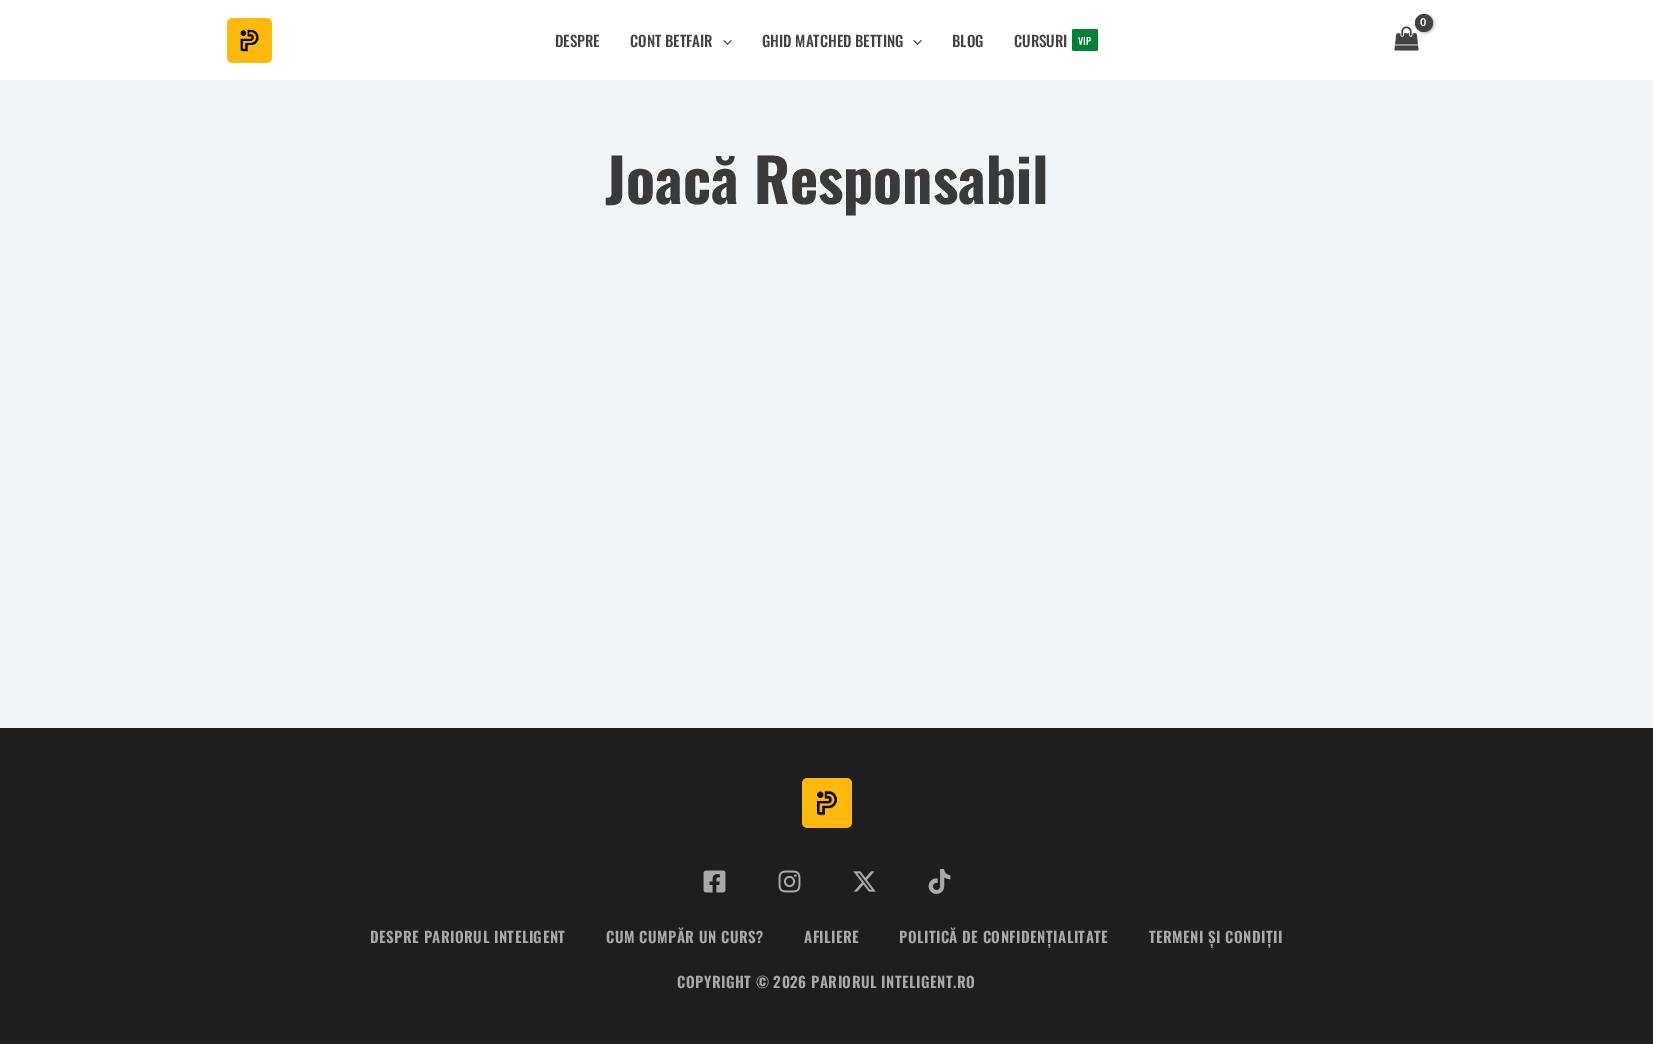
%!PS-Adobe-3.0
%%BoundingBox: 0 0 1653 1044
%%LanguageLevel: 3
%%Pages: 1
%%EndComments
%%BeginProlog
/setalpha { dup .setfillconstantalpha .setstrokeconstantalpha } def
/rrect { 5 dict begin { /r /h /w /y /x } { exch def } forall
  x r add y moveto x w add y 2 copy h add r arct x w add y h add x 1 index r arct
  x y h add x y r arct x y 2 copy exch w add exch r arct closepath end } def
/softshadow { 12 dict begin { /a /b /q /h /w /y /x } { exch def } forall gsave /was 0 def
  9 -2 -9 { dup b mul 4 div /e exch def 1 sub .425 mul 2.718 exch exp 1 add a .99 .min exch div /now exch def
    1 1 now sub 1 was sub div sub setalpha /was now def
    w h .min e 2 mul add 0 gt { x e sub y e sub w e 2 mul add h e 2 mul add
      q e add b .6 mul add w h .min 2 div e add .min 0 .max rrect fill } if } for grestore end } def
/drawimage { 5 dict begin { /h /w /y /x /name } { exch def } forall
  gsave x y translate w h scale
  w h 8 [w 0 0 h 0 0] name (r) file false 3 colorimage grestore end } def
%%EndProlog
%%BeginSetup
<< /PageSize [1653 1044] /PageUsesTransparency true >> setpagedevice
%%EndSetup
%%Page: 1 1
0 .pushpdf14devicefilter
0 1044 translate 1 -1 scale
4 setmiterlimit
1 setgray
0 0 1653 1044 rectfill
(images/1.raw) 227 18 45 45 drawimage
(images/2.raw) 1394 26 25 25 drawimage
0 setgray
1416 15 18 18 9 1.5 0.3 softshadow
0.259 setgray
newpath 1424 23 9 0 360 arc closepath fill
(images/3.raw) 723 40 9 5 drawimage
(images/3.raw) 913 40 9 5 drawimage
0 0.502 0.216 setrgbcolor
1072 29 26 22 2 rrect fill
0.949 0.961 0.969 setrgbcolor
0 80 1653 648 rectfill
0.118 setgray
0 728 1653 316 rectfill
(images/4.raw) 802 778 50 50 drawimage
(images/5.raw) 703 870 23 23 drawimage
(images/6.raw) 778 870 23 23 drawimage
(images/7.raw) 853 871 23 21 drawimage
(images/8.raw) 928 869 23 25 drawimage
/Roboto-Bold [11 0 0 -11 0 0] selectfont
1 setgray
1420 26 moveto (0) show
/Oswald-Medium [15 0 0 -15 0 0] selectfont
0.259 setgray
555 47 moveto (DESPRE) show
630 47 moveto (CONT BETFAIR) show
762 47 moveto (GHID MATCHED BETTING) show
952 47 moveto (BLOG) show
1014 47 moveto (CURSURI) show
/Oswald-Medium [10 0 0 -10 0 0] selectfont
1 setgray
1078 45 moveto (VIP) show
/Oswald-Bold [60 0 0 -60 0 0] selectfont
0.227 setgray
605 204 moveto (Joacă Responsabil) show
/Oswald-SemiBold [15 0 0 -15 0 0] selectfont
0.663 setgray
370 943 moveto 0.5 0 (DESPRE PARIORUL INTELIGENT) ashow
606 943 moveto 0.5 0 (CUM CUMPĂR UN CURS?) ashow
804 943 moveto 0.5 0 (AFILIERE) ashow
899 943 moveto 0.5 0 (POLITICĂ DE CONFIDENȚIALITATE) ashow
1149 943 moveto 0.5 0 (TERMENI ȘI CONDIȚII) ashow
677 988 moveto 0.5 0 (COPYRIGHT © 2026 PARIORUL INTELIGENT.RO) ashow
.poppdf14devicefilter showpage
%%EOF
